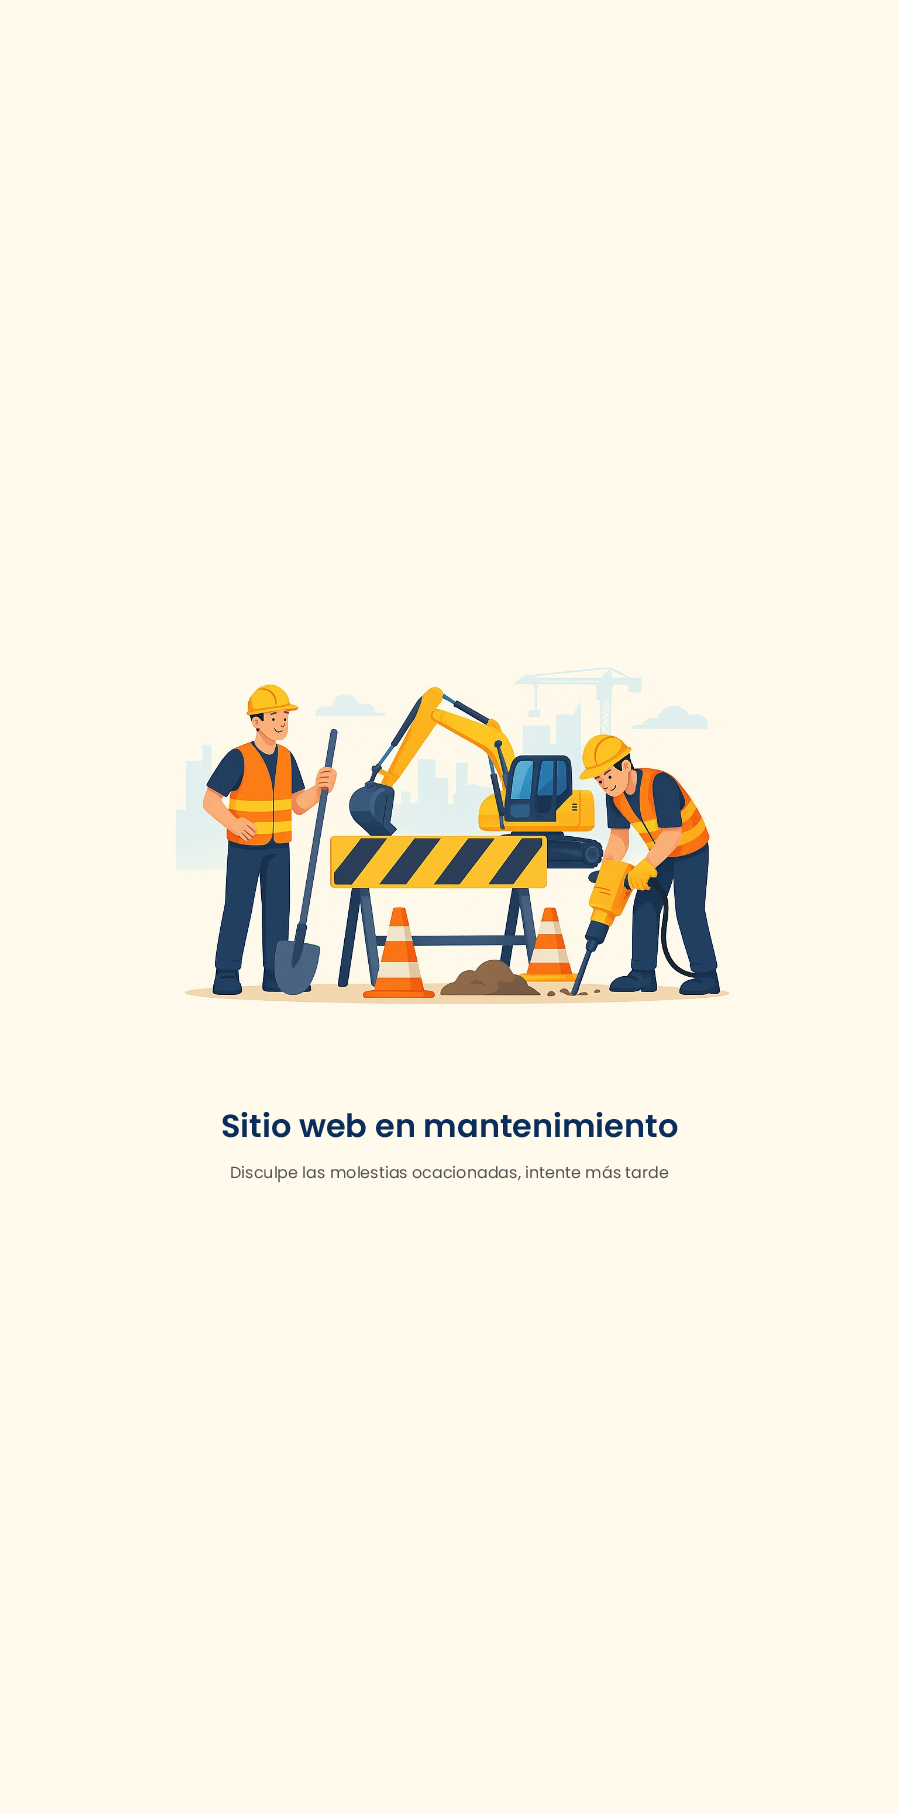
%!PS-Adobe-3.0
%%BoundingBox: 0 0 899 1814
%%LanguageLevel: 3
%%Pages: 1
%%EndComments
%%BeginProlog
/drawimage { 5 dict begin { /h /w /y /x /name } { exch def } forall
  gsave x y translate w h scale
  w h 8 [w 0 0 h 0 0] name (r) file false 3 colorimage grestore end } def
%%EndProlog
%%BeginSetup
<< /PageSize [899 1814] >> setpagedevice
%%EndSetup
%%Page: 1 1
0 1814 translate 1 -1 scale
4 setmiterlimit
1 0.98 0.925 setrgbcolor
0 0 899 1814 rectfill
(images/1.raw) 171 657 560 351 drawimage
/Poppins-SemiBold [32 0 0 -32 0 0] selectfont
0.039 0.18 0.361 setrgbcolor
221 1137 moveto (Sitio web en mantenimiento) show
/Poppins-Regular [16 0 0 -16 0 0] selectfont
0.333 setgray
230 1178 moveto (Disculpe las molestias ocacionadas, intente más tarde) show
showpage
%%EOF
